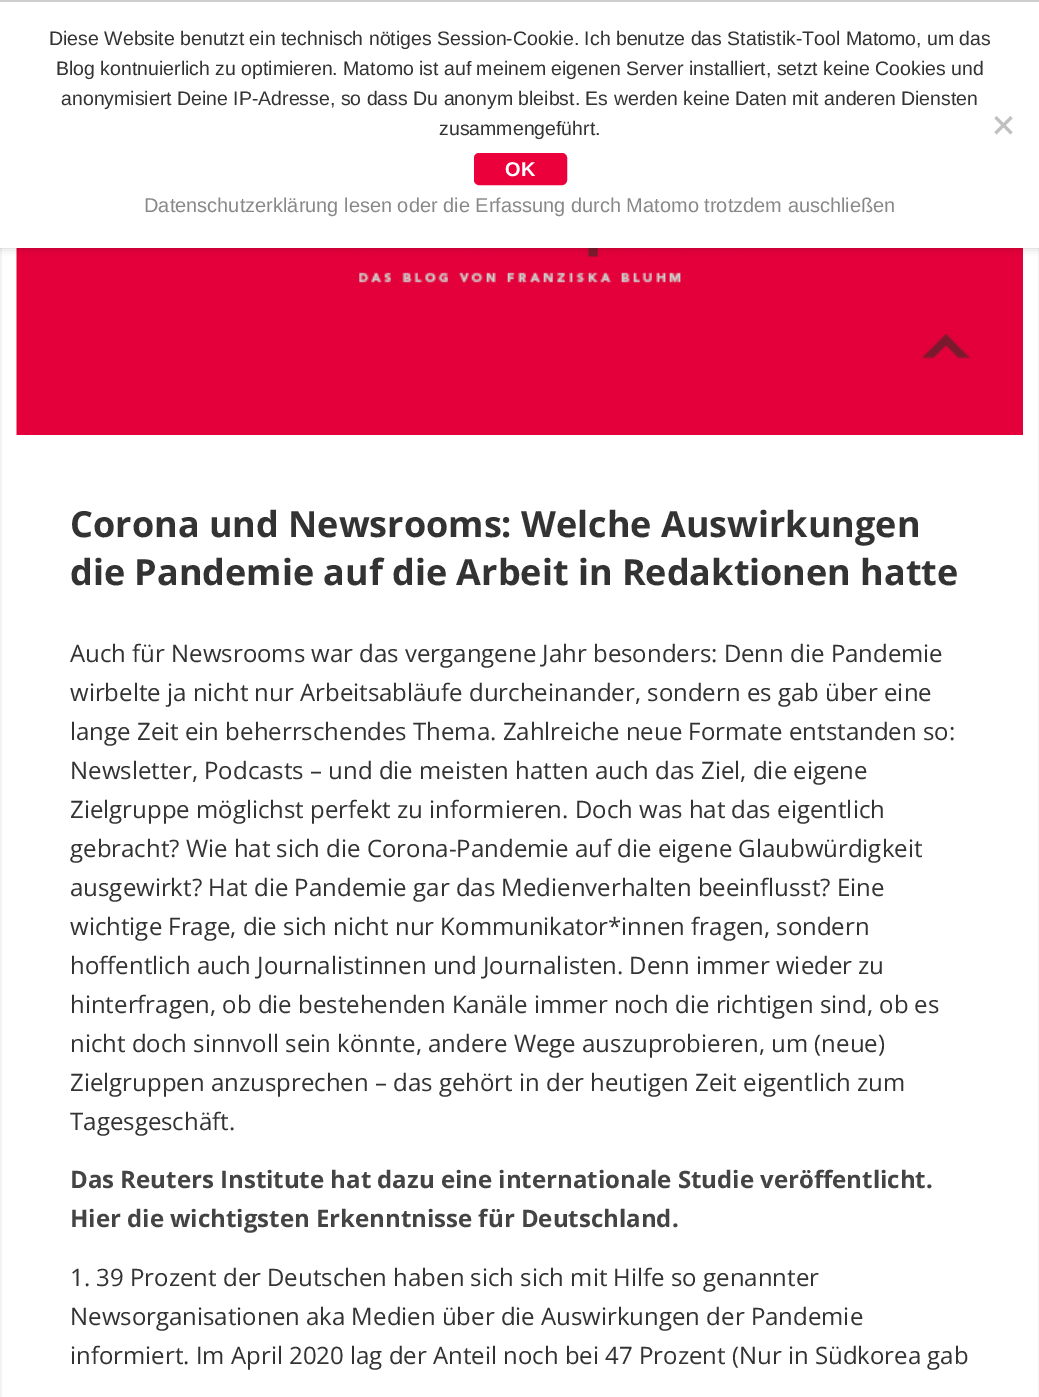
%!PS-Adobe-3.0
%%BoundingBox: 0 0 1039 1397
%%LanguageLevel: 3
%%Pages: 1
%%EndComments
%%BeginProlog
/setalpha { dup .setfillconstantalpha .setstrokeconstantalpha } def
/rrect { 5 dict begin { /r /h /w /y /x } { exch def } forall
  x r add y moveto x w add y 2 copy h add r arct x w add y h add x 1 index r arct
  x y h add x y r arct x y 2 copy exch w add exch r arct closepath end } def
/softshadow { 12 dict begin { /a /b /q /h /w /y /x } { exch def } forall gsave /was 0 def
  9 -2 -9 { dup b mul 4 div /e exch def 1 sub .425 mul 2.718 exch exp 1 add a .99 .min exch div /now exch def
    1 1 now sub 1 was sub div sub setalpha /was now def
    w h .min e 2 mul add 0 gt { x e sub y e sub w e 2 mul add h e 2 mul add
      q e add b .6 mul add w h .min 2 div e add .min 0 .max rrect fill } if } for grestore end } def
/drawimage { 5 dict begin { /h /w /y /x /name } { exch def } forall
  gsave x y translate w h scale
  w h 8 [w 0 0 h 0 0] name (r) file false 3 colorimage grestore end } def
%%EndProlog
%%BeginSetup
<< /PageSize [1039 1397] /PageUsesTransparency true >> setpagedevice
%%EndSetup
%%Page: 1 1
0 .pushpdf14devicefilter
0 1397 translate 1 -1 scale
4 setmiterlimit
1 setgray
0 0 1039 1397 rectfill
0.953 setgray
1038 248 1 1149 rectfill
0 248 2 1149 rectfill
(images/1.raw) 16 248 1007 187 drawimage
0 setgray
0 -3 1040 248 0 5 0.4 softshadow
1 setgray
0 2 1039 246 rectfill
0.812 setgray
0 0 1039 2 rectfill
0.753 setgray
newpath 1010.5 116 moveto 1012.5 118.5 lineto 996.5 134.5 lineto 994.5 132 lineto closepath fill
newpath 994.5 118.5 moveto 996.5 116 lineto 1012.5 132 lineto 1010.5 134.5 lineto closepath fill
0.925 0 0.235 setrgbcolor
475 154 91 30 4 rrect gsave fill grestore
2 setlinewidth
stroke
/LiberationSans-Regular [19.5 0 0 -19.5 0 0] selectfont
0.2 setgray
49 45 moveto (Diese Website benutzt ein technisch nötiges Session-Cookie. Ich benutze das Statistik-Tool Matomo, um das) show
56 75 moveto (Blog kontnuierlich zu optimieren. Matomo ist auf meinem eigenen Server installiert, setzt keine Cookies und) show
61 105 moveto (anonymisiert Deine IP-Adresse, so dass Du anonym bleibst. Es werden keine Daten mit anderen Diensten) show
439 135 moveto (zusammengeführt.) show
/LiberationSans-Bold [20 0 0 -20 0 0] selectfont
1 setgray
505 176 moveto (OK) show
/LiberationSans-Regular [20 0 0 -20 0 0] selectfont
0.533 setgray
144 212 moveto (Datenschutzerklärung lesen oder die Erfassung durch Matomo trotzdem auschließen) show
/OpenSans-Bold [36 0 0 -36 0 0] selectfont
0.2 setgray
70 537 moveto (Corona und Newsrooms: Welche Auswirkungen) show
70 585 moveto (die Pandemie auf die Arbeit in Redaktionen hatte) show
/OpenSans-Regular [24 0 0 -24 0 0] selectfont
70 662 moveto (Auch für Newsrooms war das vergangene Jahr besonders: Denn die Pandemie) show
70 701 moveto (wirbelte ja nicht nur Arbeitsabläufe durcheinander, sondern es gab über eine) show
70 740 moveto (lange Zeit ein beherrschendes Thema. Zahlreiche neue Formate entstanden so:) show
70 779 moveto (Newsletter, Podcasts – und die meisten hatten auch das Ziel, die eigene) show
70 818 moveto (Zielgruppe möglichst perfekt zu informieren. Doch was hat das eigentlich) show
70 857 moveto (gebracht? Wie hat sich die Corona-Pandemie auf die eigene Glaubwürdigkeit) show
70 896 moveto (ausgewirkt? Hat die Pandemie gar das Medienverhalten beeinflusst? Eine) show
70 935 moveto (wichtige Frage, die sich nicht nur Kommunikator*innen fragen, sondern) show
70 974 moveto (hoffentlich auch Journalistinnen und Journalisten. Denn immer wieder zu) show
70 1013 moveto (hinterfragen, ob die bestehenden Kanäle immer noch die richtigen sind, ob es) show
70 1052 moveto (nicht doch sinnvoll sein könnte, andere Wege auszuprobieren, um \(neue\)) show
70 1091 moveto (Zielgruppen anzusprechen – das gehört in der heutigen Zeit eigentlich zum) show
70 1130 moveto (Tagesgeschäft.) show
/OpenSans-Bold [24 0 0 -24 0 0] selectfont
0.267 setgray
70 1188 moveto (Das Reuters Institute hat dazu eine internationale Studie veröffentlicht.) show
70 1227 moveto (Hier die wichtigsten Erkenntnisse für Deutschland.) show
/OpenSans-Regular [24 0 0 -24 0 0] selectfont
0.2 setgray
70 1286 moveto (1. 39 Prozent der Deutschen haben sich sich mit Hilfe so genannter) show
70 1325 moveto (Newsorganisationen aka Medien über die Auswirkungen der Pandemie) show
70 1364 moveto (informiert. Im April 2020 lag der Anteil noch bei 47 Prozent \(Nur in Südkorea gab) show
.poppdf14devicefilter showpage
%%EOF
